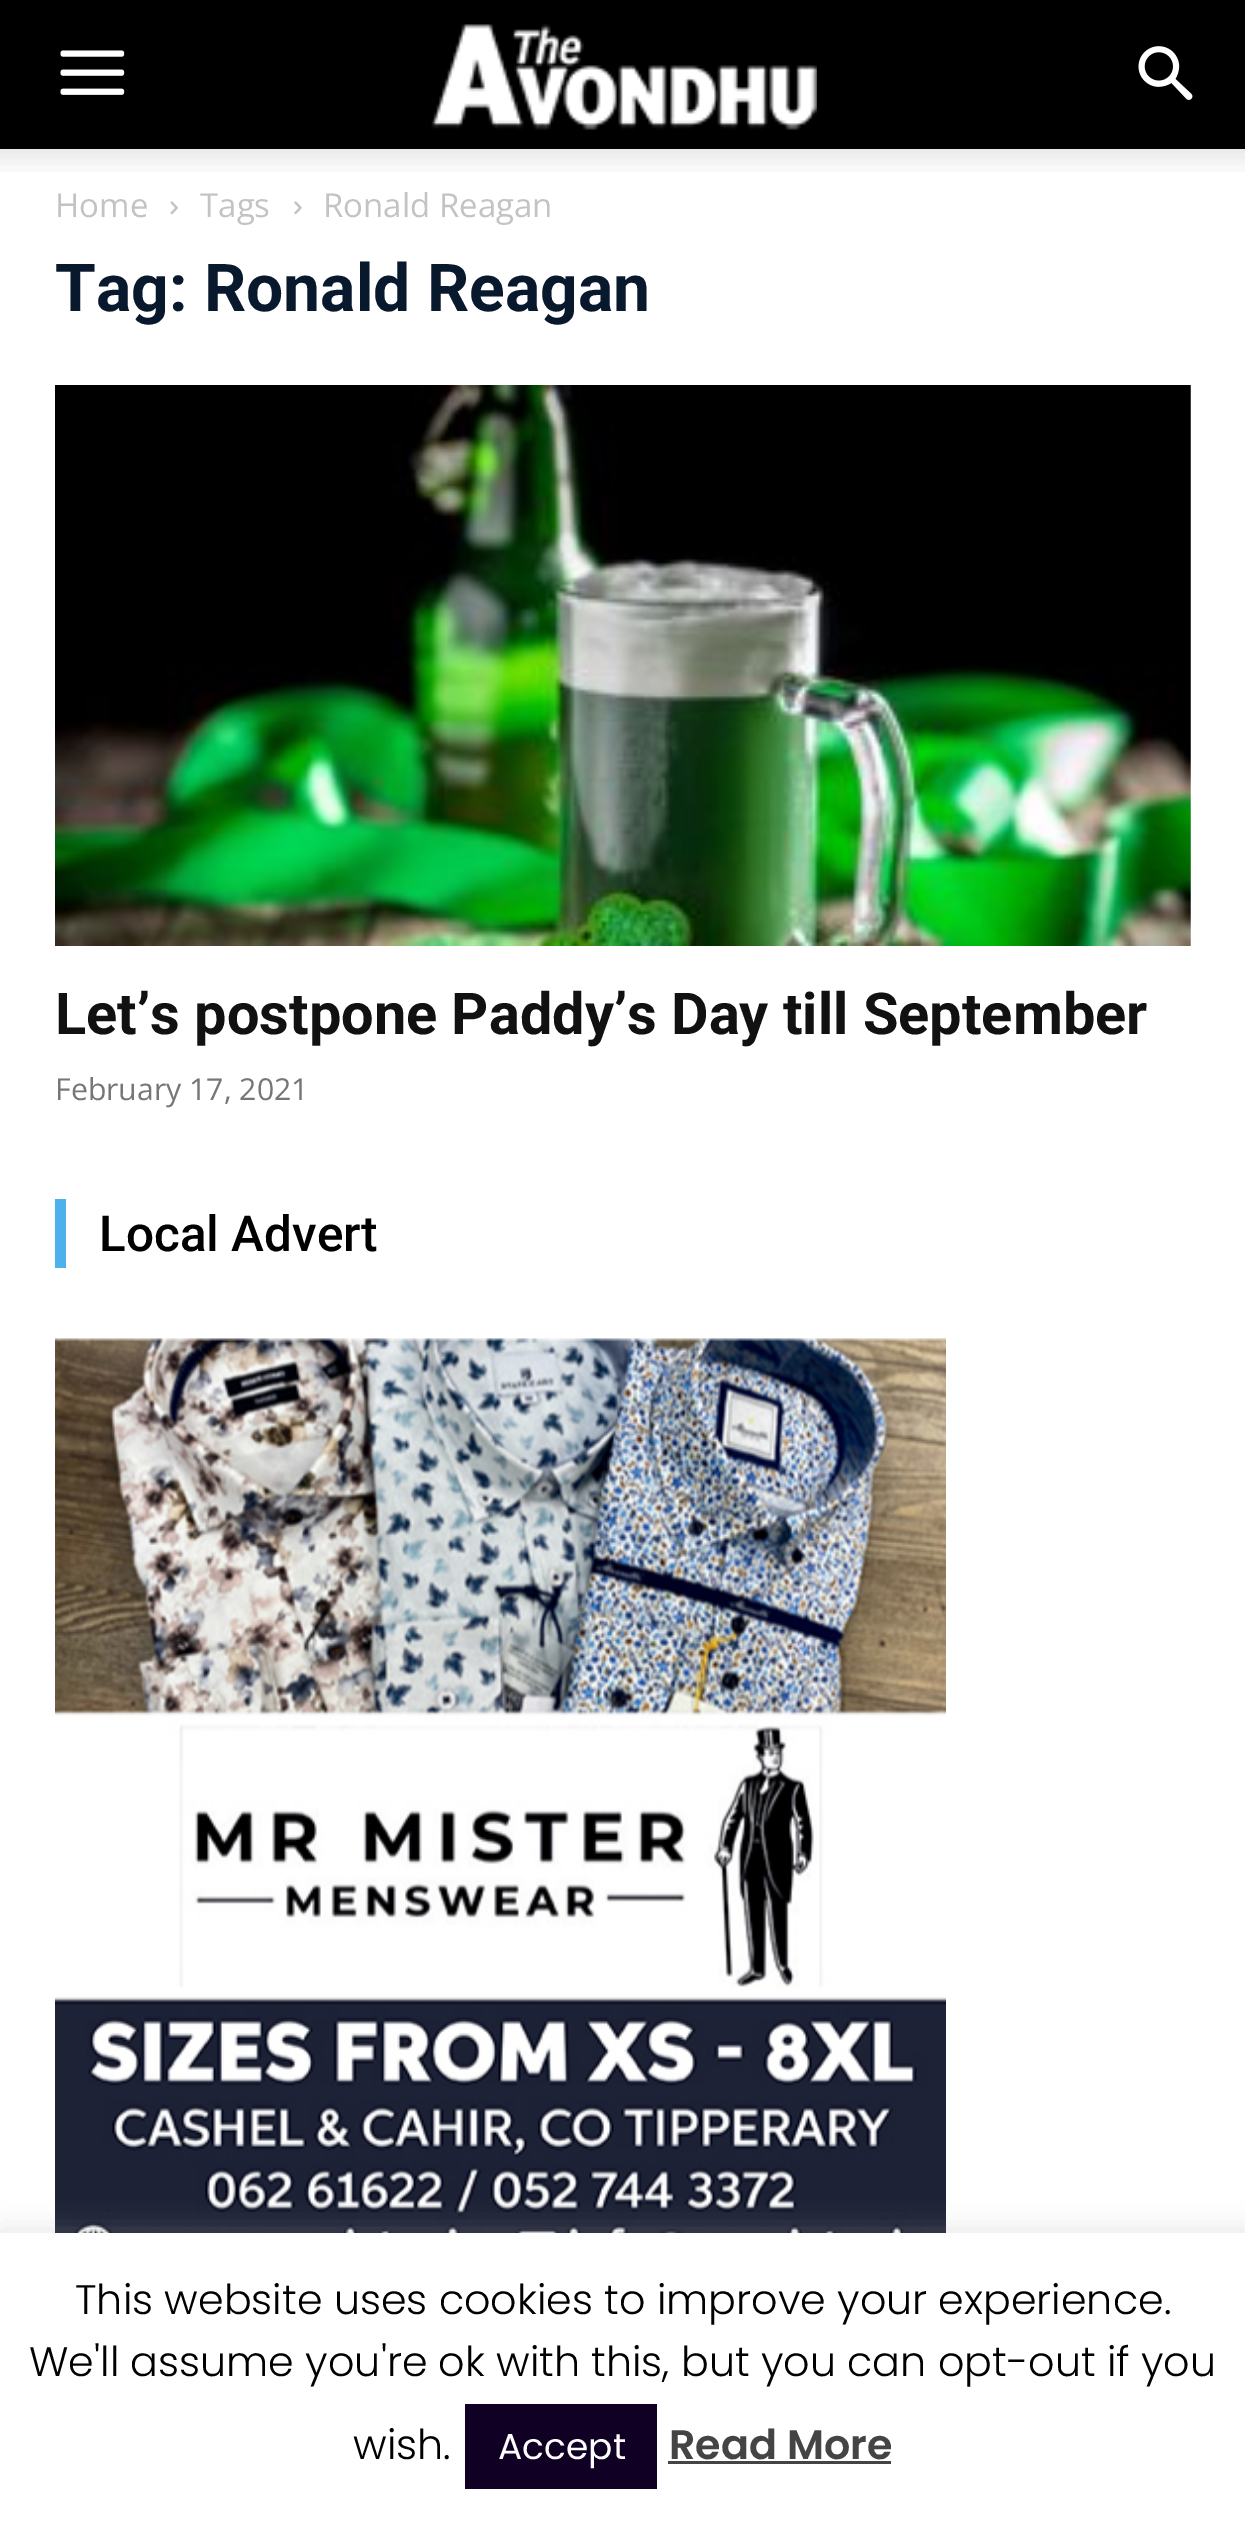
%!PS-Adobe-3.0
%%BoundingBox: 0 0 1245 2521
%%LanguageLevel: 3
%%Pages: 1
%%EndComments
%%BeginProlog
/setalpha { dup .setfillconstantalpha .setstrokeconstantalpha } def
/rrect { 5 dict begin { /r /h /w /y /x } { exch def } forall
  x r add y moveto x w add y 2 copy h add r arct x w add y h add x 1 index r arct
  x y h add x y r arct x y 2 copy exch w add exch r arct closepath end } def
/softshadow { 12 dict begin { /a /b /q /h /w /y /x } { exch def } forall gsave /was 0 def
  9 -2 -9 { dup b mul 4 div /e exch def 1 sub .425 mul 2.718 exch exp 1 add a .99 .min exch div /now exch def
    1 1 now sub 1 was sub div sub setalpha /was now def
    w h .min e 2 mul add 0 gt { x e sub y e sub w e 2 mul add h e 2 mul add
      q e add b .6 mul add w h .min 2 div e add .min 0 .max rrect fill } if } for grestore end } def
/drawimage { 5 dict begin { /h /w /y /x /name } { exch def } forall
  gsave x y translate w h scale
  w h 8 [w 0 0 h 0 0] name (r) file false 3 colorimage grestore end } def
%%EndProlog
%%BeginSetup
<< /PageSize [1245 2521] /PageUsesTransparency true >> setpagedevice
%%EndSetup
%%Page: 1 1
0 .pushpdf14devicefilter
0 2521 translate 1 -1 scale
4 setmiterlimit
1 setgray
0 0 1245 2521 rectfill
0 setgray
0 0 1245 149 rectfill
(images/1.raw) 60 50 65 45 drawimage
(images/2.raw) 431 24 386 106 drawimage
(images/3.raw) 1138 46 55 54 drawimage
(images/4.raw) 0 149 1245 23 drawimage
(images/5.raw) 170 201 8 14 drawimage
(images/6.raw) 294 201 8 14 drawimage
(images/7.raw) 55 385 1136 561 drawimage
0.302 0.698 0.925 setrgbcolor
55 1199 11 69 rectfill
(images/8.raw) 55 1338 891 895 drawimage
0.675 0.671 0.671 setrgbcolor
0 2230 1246 289 0 14 0.3 softshadow
1 setgray
0 2233 1245 288 rectfill
0.059 0 0.141 setrgbcolor
465 2404 192 85 rectfill
0.267 setgray
668 2461 223 3 rectfill
/OpenSans-Regular [33 0 0 -33 0 0] selectfont
0.765 setgray
55 217 moveto (Home) show
200 217 moveto (Tags) show
323 217 moveto (Ronald Reagan) show
/Roboto-Bold [66 0 0 -66 0 0] selectfont
0.031 0.098 0.176 setrgbcolor
55 311 moveto (Tag: Ronald Reagan) show
/Roboto-Bold [57.75 0 0 -57.75 0 0] selectfont
0.067 setgray
55 1034 moveto (Let’s postpone Paddy’s Day till September) show
/OpenSans-Regular [30.25 0 0 -30.25 0 0] selectfont
0.463 setgray
55 1100 moveto (February 17, 2021) show
/Roboto-Medium [49.5 0 0 -49.5 0 0] selectfont
0 setgray
99 1251 moveto (Local Advert) show
/Poppins-Light [41.25 0 0 -41.25 0 0] selectfont
75 2314 moveto (This website uses cookies to improve your experience.) show
29 2376 moveto (We'll assume you're ok with this, but you can opt-out if you) show
353 2459 moveto (wish.) show
/Poppins-Regular [36 0 0 -36 0 0] selectfont
1 setgray
498 2459 moveto (Accept) show
/Poppins-SemiBold [41.25 0 0 -41.25 0 0] selectfont
0.267 setgray
669 2459 moveto (Read More) show
.poppdf14devicefilter showpage
%%EOF
